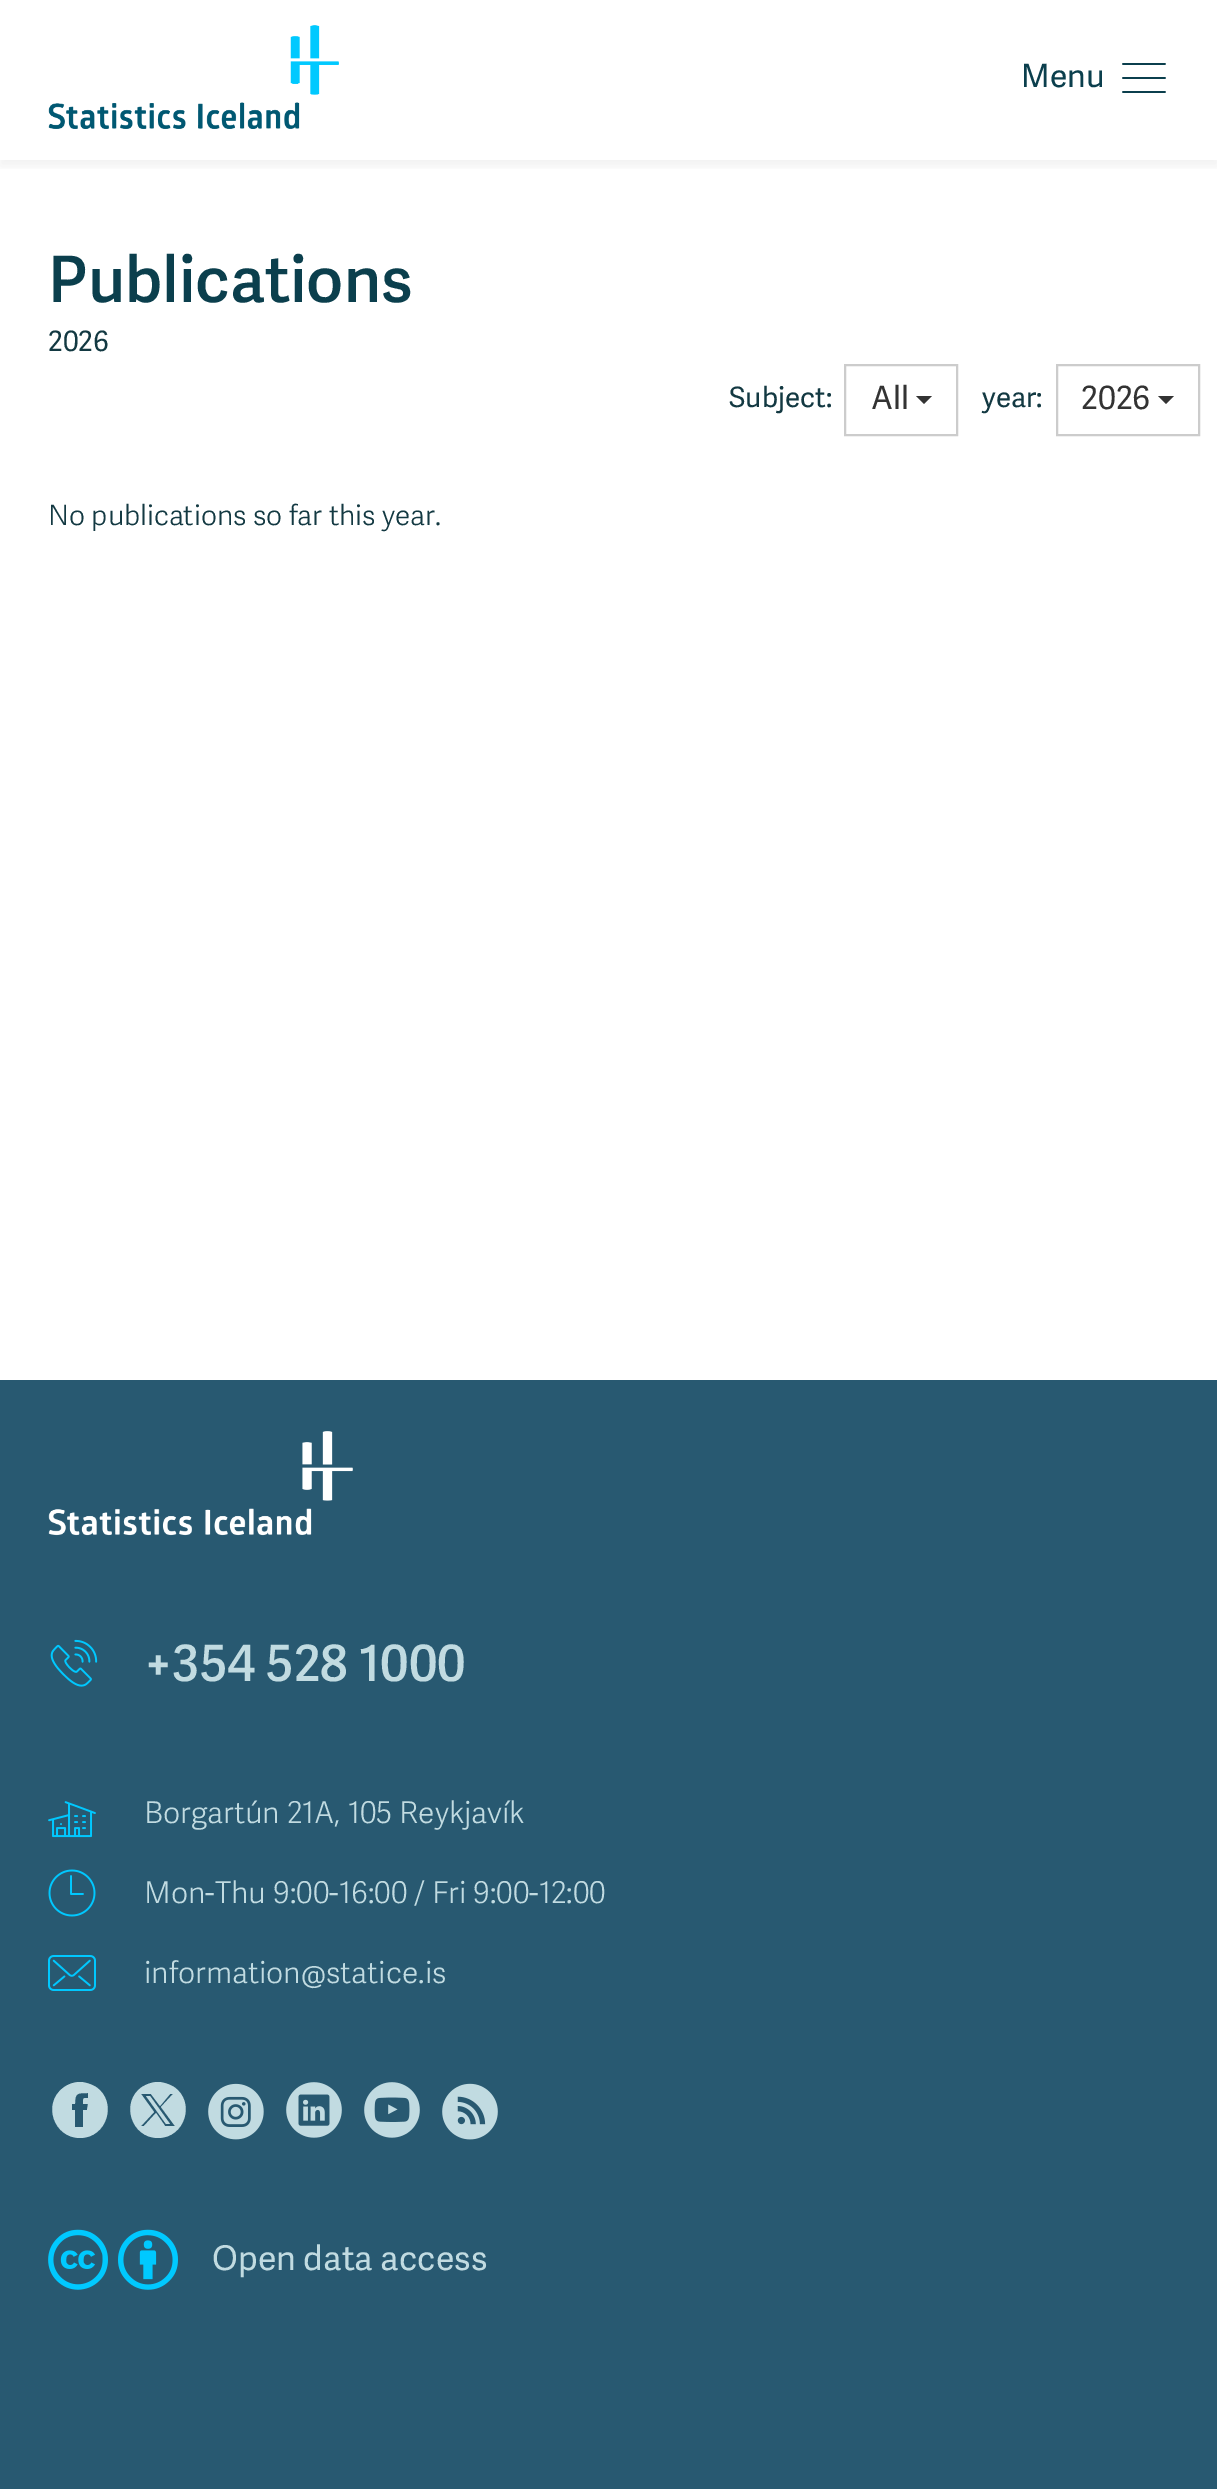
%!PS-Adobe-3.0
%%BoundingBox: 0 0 1217 2489
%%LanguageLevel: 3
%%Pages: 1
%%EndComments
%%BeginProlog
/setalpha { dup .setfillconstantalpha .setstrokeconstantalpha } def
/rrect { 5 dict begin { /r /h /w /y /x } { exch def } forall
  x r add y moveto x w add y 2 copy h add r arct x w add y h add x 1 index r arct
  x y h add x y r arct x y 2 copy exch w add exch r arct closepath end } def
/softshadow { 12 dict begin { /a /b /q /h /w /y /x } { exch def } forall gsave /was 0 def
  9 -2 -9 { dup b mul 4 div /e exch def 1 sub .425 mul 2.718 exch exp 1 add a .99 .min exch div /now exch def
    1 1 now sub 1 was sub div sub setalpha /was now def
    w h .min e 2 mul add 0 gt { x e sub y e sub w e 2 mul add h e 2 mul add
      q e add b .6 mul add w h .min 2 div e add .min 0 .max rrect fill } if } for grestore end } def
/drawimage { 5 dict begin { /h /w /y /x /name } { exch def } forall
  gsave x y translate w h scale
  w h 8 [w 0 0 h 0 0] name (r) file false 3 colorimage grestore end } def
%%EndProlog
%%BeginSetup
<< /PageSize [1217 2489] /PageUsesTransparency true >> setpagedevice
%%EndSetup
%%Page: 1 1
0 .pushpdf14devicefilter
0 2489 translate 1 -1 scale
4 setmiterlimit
1 setgray
0 0 1217 2489 rectfill
gsave
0 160 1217 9 rectclip
0 setgray
0 6 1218 160 0 6 0.06 softshadow
grestore
(images/1.raw) 48 25 291 104 drawimage
(images/2.raw) 1122 63 44 30 drawimage
0.8 setgray
2 setlinewidth
845 365 112 70 rectstroke
0.2 setgray
newpath 916 396 moveto 932 396 lineto 924 404 lineto closepath fill
0.8 setgray
1057 365 142 70 rectstroke
0.2 setgray
newpath 1158 396 moveto 1174 396 lineto 1166 404 lineto closepath fill
0.157 0.349 0.443 setrgbcolor
0 1380 1217 1109 rectfill
(images/3.raw) 48 1431 305 105 drawimage
(images/4.raw) 50 1639 48 48 drawimage
(images/5.raw) 48 1801 48 37 drawimage
(images/6.raw) 48 1869 48 48 drawimage
(images/7.raw) 48 1955 48 36 drawimage
0.757 0.859 0.882 setrgbcolor
newpath 80 2082 moveto 74 2082 68 2084 63 2088 curveto 42 2104 54 2138 80 2138 curveto 107 2138 118 2102 96 2087 curveto 91 2084 85 2082 80 2082 curveto closepath 87 2110 moveto 83 2110 lineto 83 2127 lineto 75 2127 lineto 75 2110 lineto 72 2110 lineto 72 2104 lineto 75 2104 lineto 75 2093 77 2093 88 2093 curveto 88 2098 lineto 83 2098 83 2098 83 2104 curveto 88 2104 lineto closepath fill
newpath 146 2096 moveto 166 2124 lineto 170 2124 lineto 150 2096 lineto closepath 158 2082 moveto 152 2082 147 2084 142 2087 curveto 120 2102 131 2138 158 2138 curveto 185 2138 196 2102 174 2087 curveto 169 2084 163 2082 158 2082 curveto closepath 165 2126 moveto 156 2113 lineto 144 2126 lineto 141 2126 lineto 154 2112 lineto 141 2094 lineto 151 2094 lineto 160 2106 lineto 170 2094 lineto 173 2094 lineto 161 2107 lineto 175 2126 lineto closepath fill
(images/8.raw) 208 2083 56 57 drawimage
(images/9.raw) 286 2082 56 56 drawimage
(images/10.raw) 364 2082 56 56 drawimage
(images/11.raw) 442 2083 56 57 drawimage
(images/12.raw) 48 2229 60 61 drawimage
(images/13.raw) 118 2229 60 61 drawimage
/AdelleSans-Regular [32 0 0 -32 0 0] selectfont
0.043 0.247 0.302 setrgbcolor
1021 87 moveto (Menu) show
/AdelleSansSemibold-SemiBold [64 0 0 -64 0 0] selectfont
48 302 moveto (Publications) show
/AdelleSans-Regular [28 0 0 -28 0 0] selectfont
0.075 0.224 0.259 setrgbcolor
48 351 moveto (2026) show
729 407 moveto (Subject:) show
/AdelleSans-Regular [32 0 0 -32 0 0] selectfont
0.2 setgray
871 409 moveto (All) show
/AdelleSans-Regular [28 0 0 -28 0 0] selectfont
0.075 0.224 0.259 setrgbcolor
982 407 moveto (year:) show
/AdelleSans-Regular [32 0 0 -32 0 0] selectfont
0.2 setgray
1081 409 moveto (2026) show
/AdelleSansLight-Light [28 0 0 -28 0 0] selectfont
0.075 0.224 0.259 setrgbcolor
48 525 moveto (No publications so far this year.) show
/AdelleSansSemibold-SemiBold [50 0 0 -50 0 0] selectfont
0.757 0.859 0.882 setrgbcolor
144 1681 moveto (+354 528 1000) show
/AdelleSansLight-Light [30 0 0 -30 0 0] selectfont
144 1823 moveto (Borgartún 21A, 105 Reykjavík) show
144 1903 moveto (Mon-Thu 9:00-16:00 / Fri 9:00-12:00) show
144 1983 moveto (information@statice.is) show
/AdelleSans-Regular [34 0 0 -34 0 0] selectfont
212 2270 moveto (Open data access) show
.poppdf14devicefilter showpage
%%EOF
